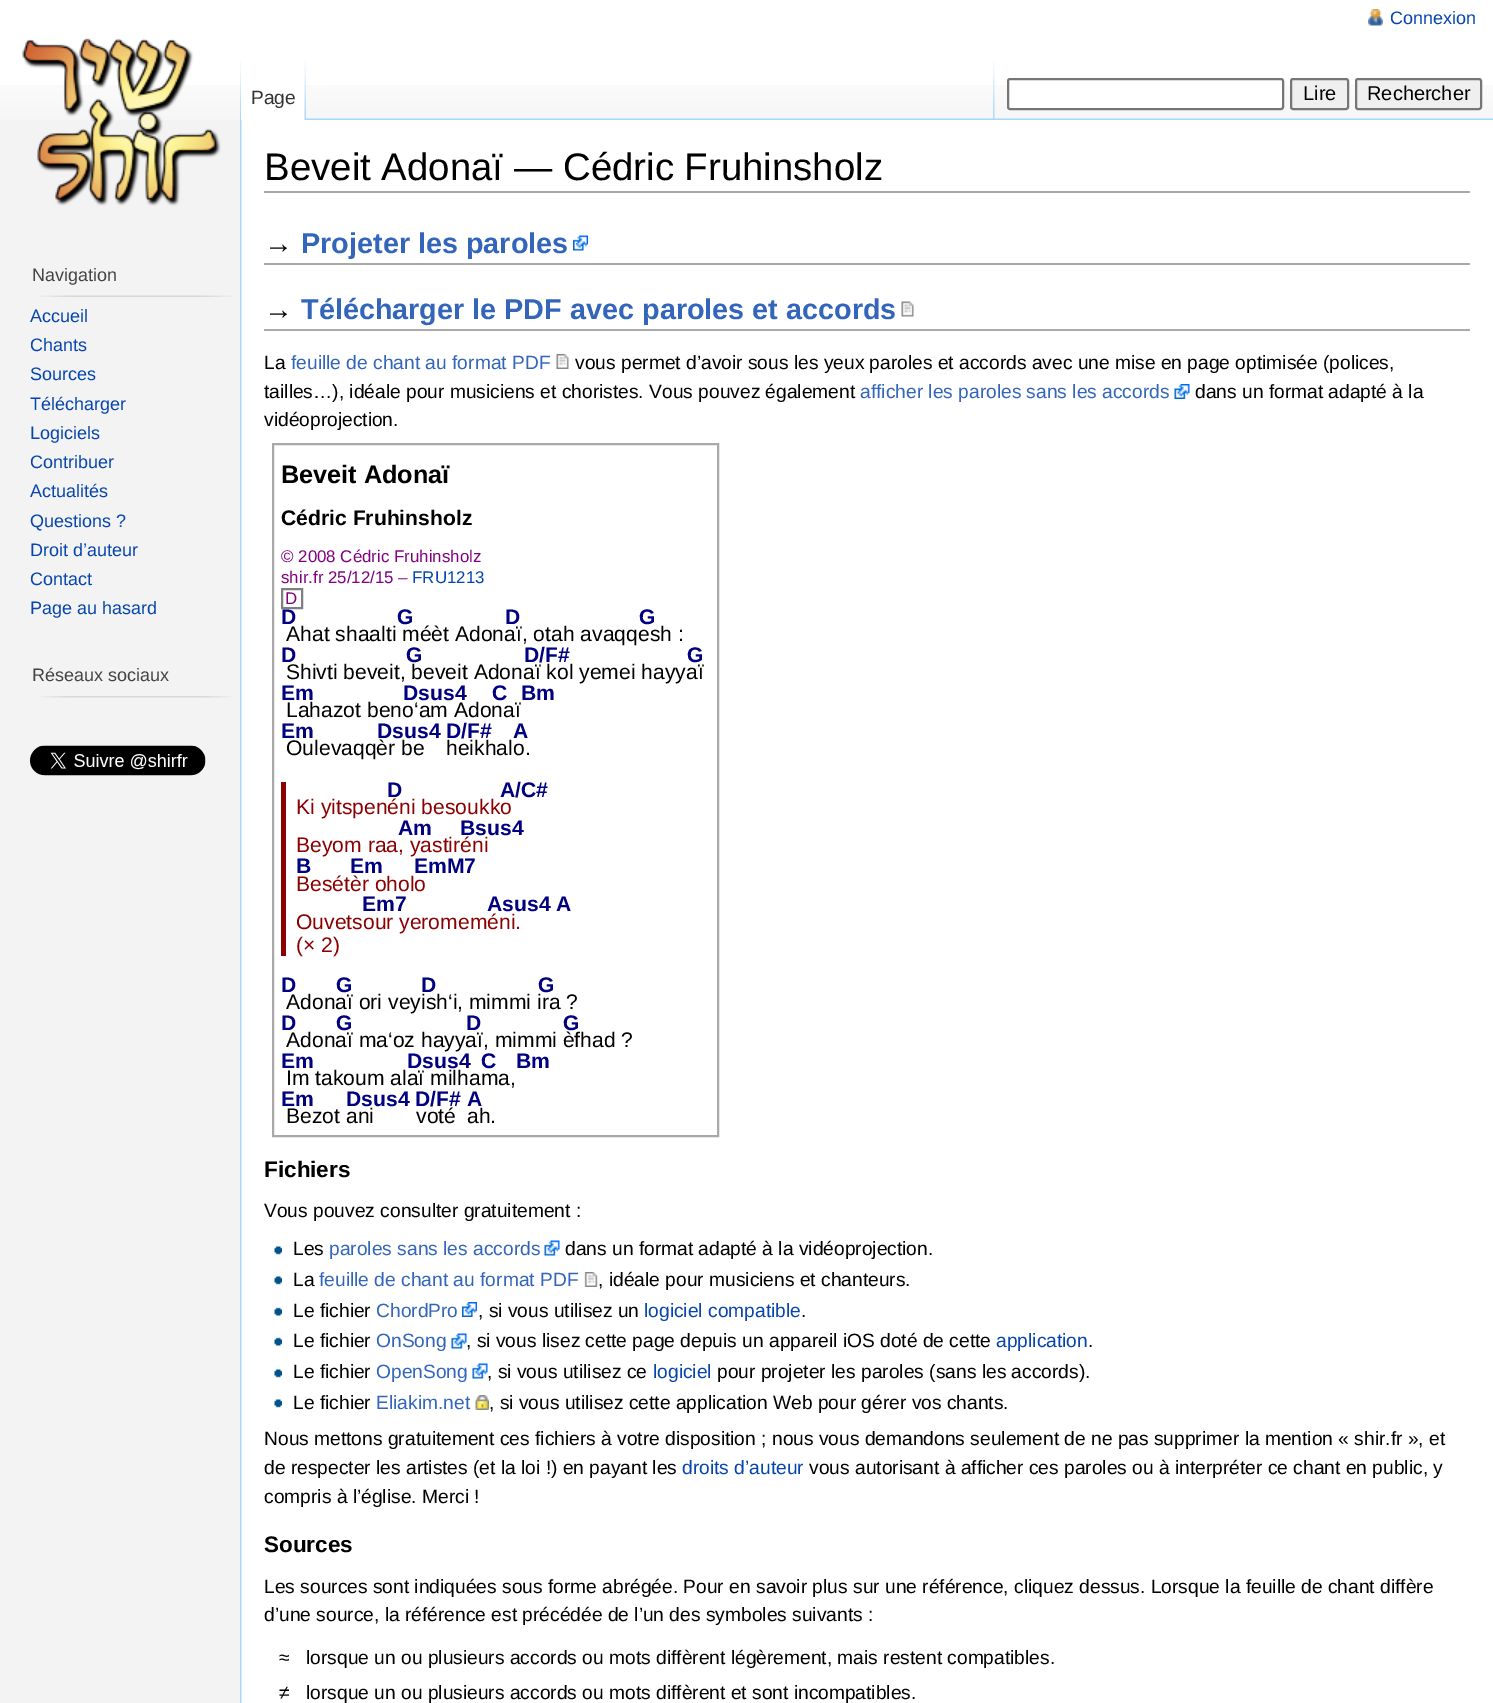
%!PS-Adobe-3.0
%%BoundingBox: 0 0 1493 1703
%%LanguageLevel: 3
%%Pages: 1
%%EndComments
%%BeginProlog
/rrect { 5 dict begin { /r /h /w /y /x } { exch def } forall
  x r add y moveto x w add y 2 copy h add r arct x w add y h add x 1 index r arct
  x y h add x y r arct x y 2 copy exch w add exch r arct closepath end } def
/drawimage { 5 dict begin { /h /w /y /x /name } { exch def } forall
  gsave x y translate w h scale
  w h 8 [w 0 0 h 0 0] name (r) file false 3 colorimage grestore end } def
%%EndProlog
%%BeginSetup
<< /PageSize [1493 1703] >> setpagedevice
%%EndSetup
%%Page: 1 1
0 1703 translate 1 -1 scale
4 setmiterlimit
0.953 setgray
0 0 1493 1703 rectfill
1 setgray
0 0 1493 85 rectfill
(images/1.raw) 0 85 1493 35 drawimage
(images/2.raw) 1368 9 15 17 drawimage
(images/6.raw) 240 118 1253 2 drawimage
(images/3.raw) 240 60 1 59 drawimage
241 85 65 35 rectfill
(images/4.raw) 304 61 2 59 drawimage
(images/5.raw) 993 60 2 59 drawimage
1008 79 275 30 2 rrect gsave fill grestore
0.463 setgray
2 setlinewidth
stroke
0.937 setgray
1291 79 57 30 2 rrect gsave fill grestore
0.463 setgray
stroke
0.937 setgray
1356 79 125 30 2 rrect gsave fill grestore
0.463 setgray
stroke
(images/7.raw) 22 38 199 168 drawimage
(images/8.raw) 40 295 192 2 drawimage
(images/9.raw) 40 696 192 2 drawimage
(images/10.raw) 30 745 176 31 drawimage
1 setgray
241 120 1252 1583 rectfill
(images/11.raw) 240 120 2 1583 drawimage
0.667 setgray
264 191 1206 2 rectfill
264 263 1206 2 rectfill
(images/12.raw) 573 235 15 16 drawimage
264 329 1206 2 rectfill
(images/13.raw) 901 301 13 16 drawimage
(images/14.raw) 556 354 13 15 drawimage
(images/15.raw) 1174 384 16 15 drawimage
0.663 setgray
273 444 445 692 rectstroke
0.502 setgray
282 589 20 19 rectstroke
0.545 0 0 setrgbcolor
281 782 5 174 rectfill
(images/16.raw) 274 1246 8 9 drawimage
(images/17.raw) 544 1240 16 16 drawimage
(images/16.raw) 274 1276 8 9 drawimage
(images/18.raw) 584 1272 14 15 drawimage
(images/19.raw) 274 1307 8 9 drawimage
(images/20.raw) 462 1302 15 15 drawimage
(images/19.raw) 274 1337 8 9 drawimage
(images/21.raw) 451 1333 16 16 drawimage
(images/16.raw) 274 1369 8 9 drawimage
(images/21.raw) 472 1363 16 16 drawimage
(images/16.raw) 274 1399 8 9 drawimage
(images/22.raw) 475 1395 14 15 drawimage
/LiberationSans-Regular [18 0 0 -18 0 0] selectfont
0.024 0.271 0.678 setrgbcolor
1390 24 moveto (Connexion) show
/LiberationSans-Regular [19.2 0 0 -19.2 0 0] selectfont
0.2 setgray
251 104 moveto (Page) show
/LiberationSans-Regular [20 0 0 -20 0 0] selectfont
0 setgray
1303 100 moveto (Lire) show
1367 100 moveto (Rechercher) show
/LiberationSans-Regular [18 0 0 -18 0 0] selectfont
0.267 setgray
32 281 moveto (Navigation) show
0.024 0.271 0.678 setrgbcolor
30 322 moveto (Accueil) show
30 351 moveto (Chants) show
30 380 moveto (Sources) show
30 410 moveto (Télécharger) show
30 439 moveto (Logiciels) show
30 468 moveto (Contribuer) show
30 497 moveto (Actualités) show
30 527 moveto (Questions ?) show
30 556 moveto (Droit d’auteur) show
30 585 moveto (Contact) show
30 614 moveto (Page au hasard) show
0.267 setgray
32 681 moveto (Réseaux sociaux) show
/LiberationSans-Regular [38.4 0 0 -38.4 0 0] selectfont
0 setgray
264 180 moveto (Beveit Adonaï — Cédric Fruhinsholz) show
/LiberationSans-Bold [28.8 0 0 -28.8 0 0] selectfont
264 253 moveto (→) show
0.2 0.4 0.733 setrgbcolor
301 253 moveto (Projeter les paroles) show
0 setgray
264 319 moveto (→) show
0.2 0.4 0.733 setrgbcolor
301 319 moveto (Télécharger le PDF avec paroles et accords) show
/LiberationSans-Regular [19.2 0 0 -19.2 0 0] selectfont
0 setgray
264 369 moveto (La) show
0.2 0.4 0.733 setrgbcolor
291 369 moveto (feuille de chant au format PDF) show
0 setgray
575 369 moveto (vous permet d’avoir sous les yeux paroles et accords avec une mise en page optimisée \(polices,) show
264 398 moveto (tailles…\), idéale pour musiciens et choristes. Vous pouvez également) show
0.2 0.4 0.733 setrgbcolor
860 398 moveto (afficher les paroles sans les accords) show
0 setgray
1195 398 moveto (dans un format adapté à la) show
264 426 moveto (vidéoprojection.) show
/LiberationSans-Bold [25.25 0 0 -25.25 0 0] selectfont
281 483 moveto (Beveit Adonaï) show
/LiberationSans-Bold [21.1 0 0 -21.1 0 0] selectfont
281 525 moveto (Cédric Fruhinsholz) show
/LiberationSans-Regular [16.9 0 0 -16.9 0 0] selectfont
0.502 0 0.502 setrgbcolor
281 562 moveto (© 2008 Cédric Fruhinsholz) show
281 583 moveto (shir.fr 25/12/15 –) show
0.024 0.271 0.678 setrgbcolor
412 583 moveto (FRU1213) show
0.502 0 0.502 setrgbcolor
285 604 moveto (D) show
/LiberationSans-Bold [21.1 0 0 -21.1 0 0] selectfont
0 0 0.502 setrgbcolor
281 624 moveto (D) show
397 624 moveto (G) show
505 624 moveto (D) show
639 624 moveto (G) show
/LiberationSans-Regular [21.1 0 0 -21.1 0 0] selectfont
0 setgray
286 641 moveto (Ahat shaalti méèt Adonaï, otah avaqqesh :) show
/LiberationSans-Bold [21.1 0 0 -21.1 0 0] selectfont
0 0 0.502 setrgbcolor
281 662 moveto (D) show
406 662 moveto (G) show
524 662 moveto (D/F#) show
687 662 moveto (G) show
/LiberationSans-Regular [21.1 0 0 -21.1 0 0] selectfont
0 setgray
286 679 moveto (Shivti beveit, beveit Adonaï kol yemei hayyaï) show
/LiberationSans-Bold [21.1 0 0 -21.1 0 0] selectfont
0 0 0.502 setrgbcolor
281 700 moveto (Em) show
403 700 moveto (Dsus4) show
492 700 moveto (C) show
521 700 moveto (Bm) show
/LiberationSans-Regular [21.1 0 0 -21.1 0 0] selectfont
0 setgray
286 717 moveto (Lahazot beno‘am Adonaï) show
/LiberationSans-Bold [21.1 0 0 -21.1 0 0] selectfont
0 0 0.502 setrgbcolor
281 738 moveto (Em) show
377 738 moveto (Dsus4 D/F#) show
513 738 moveto (A) show
/LiberationSans-Regular [21.1 0 0 -21.1 0 0] selectfont
0 setgray
286 755 moveto (Oulevaqqèr be) show
446 755 moveto (heikhalo.) show
/LiberationSans-Bold [21.1 0 0 -21.1 0 0] selectfont
0 0 0.502 setrgbcolor
387 797 moveto (D) show
500 797 moveto (A/C#) show
/LiberationSans-Regular [21.1 0 0 -21.1 0 0] selectfont
0.545 0 0 setrgbcolor
296 814 moveto (Ki yitspenéni besoukko) show
/LiberationSans-Bold [21.1 0 0 -21.1 0 0] selectfont
0 0 0.502 setrgbcolor
398 835 moveto (Am) show
460 835 moveto (Bsus4) show
/LiberationSans-Regular [21.1 0 0 -21.1 0 0] selectfont
0.545 0 0 setrgbcolor
296 852 moveto (Beyom raa, yastiréni) show
/LiberationSans-Bold [21.1 0 0 -21.1 0 0] selectfont
0 0 0.502 setrgbcolor
296 873 moveto (B) show
350 873 moveto (Em) show
414 873 moveto (EmM7) show
/LiberationSans-Regular [21.1 0 0 -21.1 0 0] selectfont
0.545 0 0 setrgbcolor
296 891 moveto (Besétèr oholo) show
/LiberationSans-Bold [21.1 0 0 -21.1 0 0] selectfont
0 0 0.502 setrgbcolor
362 911 moveto (Em7) show
487 911 moveto (Asus4 A) show
/LiberationSans-Regular [21.1 0 0 -21.1 0 0] selectfont
0.545 0 0 setrgbcolor
296 929 moveto (Ouvetsour yeromeméni.) show
296 952 moveto (\(× 2\)) show
/LiberationSans-Bold [21.1 0 0 -21.1 0 0] selectfont
0 0 0.502 setrgbcolor
281 992 moveto (D) show
336 992 moveto (G) show
421 992 moveto (D) show
538 992 moveto (G) show
/LiberationSans-Regular [21.1 0 0 -21.1 0 0] selectfont
0 setgray
286 1009 moveto (Adonaï ori veyish‘i, mimmi ira ?) show
/LiberationSans-Bold [21.1 0 0 -21.1 0 0] selectfont
0 0 0.502 setrgbcolor
281 1030 moveto (D) show
336 1030 moveto (G) show
466 1030 moveto (D) show
563 1030 moveto (G) show
/LiberationSans-Regular [21.1 0 0 -21.1 0 0] selectfont
0 setgray
286 1047 moveto (Adonaï ma‘oz hayyaï, mimmi èfhad ?) show
/LiberationSans-Bold [21.1 0 0 -21.1 0 0] selectfont
0 0 0.502 setrgbcolor
281 1068 moveto (Em) show
407 1068 moveto (Dsus4) show
481 1068 moveto (C) show
516 1068 moveto (Bm) show
/LiberationSans-Regular [21.1 0 0 -21.1 0 0] selectfont
0 setgray
286 1085 moveto (Im takoum alaï milhama,) show
/LiberationSans-Bold [21.1 0 0 -21.1 0 0] selectfont
0 0 0.502 setrgbcolor
281 1106 moveto (Em) show
346 1106 moveto (Dsus4 D/F# A) show
/LiberationSans-Regular [21.1 0 0 -21.1 0 0] selectfont
0 setgray
286 1123 moveto (Bezot ani) show
416 1123 moveto (voté) show
467 1123 moveto (ah.) show
/LiberationSans-Bold [22.5 0 0 -22.5 0 0] selectfont
264 1177 moveto (Fichiers) show
/LiberationSans-Regular [19.2 0 0 -19.2 0 0] selectfont
264 1217 moveto (Vous pouvez consulter gratuitement :) show
293 1255 moveto (Les) show
0.2 0.4 0.733 setrgbcolor
329 1255 moveto (paroles sans les accords) show
0 setgray
565 1255 moveto (dans un format adapté à la vidéoprojection.) show
293 1286 moveto (La) show
0.2 0.4 0.733 setrgbcolor
319 1286 moveto (feuille de chant au format PDF) show
0 setgray
598 1286 moveto (, idéale pour musiciens et chanteurs.) show
293 1317 moveto (Le fichier) show
0.2 0.4 0.733 setrgbcolor
376 1317 moveto (ChordPro) show
0 setgray
478 1317 moveto (, si vous utilisez un) show
0.024 0.271 0.678 setrgbcolor
644 1317 moveto (logiciel compatible) show
0 setgray
801 1317 moveto (.) show
293 1347 moveto (Le fichier) show
0.2 0.4 0.733 setrgbcolor
376 1347 moveto (OnSong) show
0 setgray
466 1347 moveto (, si vous lisez cette page depuis un appareil iOS doté de cette) show
0.024 0.271 0.678 setrgbcolor
996 1347 moveto (application) show
0 setgray
1088 1347 moveto (.) show
293 1378 moveto (Le fichier) show
0.2 0.4 0.733 setrgbcolor
376 1378 moveto (OpenSong) show
0 setgray
487 1378 moveto (, si vous utilisez ce) show
0.024 0.271 0.678 setrgbcolor
653 1378 moveto (logiciel) show
0 setgray
717 1378 moveto (pour projeter les paroles \(sans les accords\).) show
293 1409 moveto (Le fichier) show
0.2 0.4 0.733 setrgbcolor
376 1409 moveto (Eliakim.net) show
0 setgray
489 1409 moveto (, si vous utilisez cette application Web pour gérer vos chants.) show
264 1445 moveto (Nous mettons gratuitement ces fichiers à votre disposition ; nous vous demandons seulement de ne pas supprimer la mention « shir.fr », et) show
264 1474 moveto (de respecter les artistes \(et la loi !\) en payant les) show
0.024 0.271 0.678 setrgbcolor
682 1474 moveto (droits d’auteur) show
0 setgray
809 1474 moveto (vous autorisant à afficher ces paroles ou à interpréter ce chant en public, y) show
264 1503 moveto (compris à l’église. Merci !) show
/LiberationSans-Bold [22.5 0 0 -22.5 0 0] selectfont
264 1552 moveto (Sources) show
/LiberationSans-Regular [19.2 0 0 -19.2 0 0] selectfont
264 1593 moveto (Les sources sont indiquées sous forme abrégée. Pour en savoir plus sur une référence, cliquez dessus. Lorsque la feuille de chant diffère) show
264 1621 moveto (d’une source, la référence est précédée de l’un des symboles suivants :) show
279 1664 moveto (≈) show
306 1664 moveto (lorsque un ou plusieurs accords ou mots diffèrent légèrement, mais restent compatibles.) show
279 1699 moveto (≠) show
306 1699 moveto (lorsque un ou plusieurs accords ou mots diffèrent et sont incompatibles.) show
showpage
%%EOF
